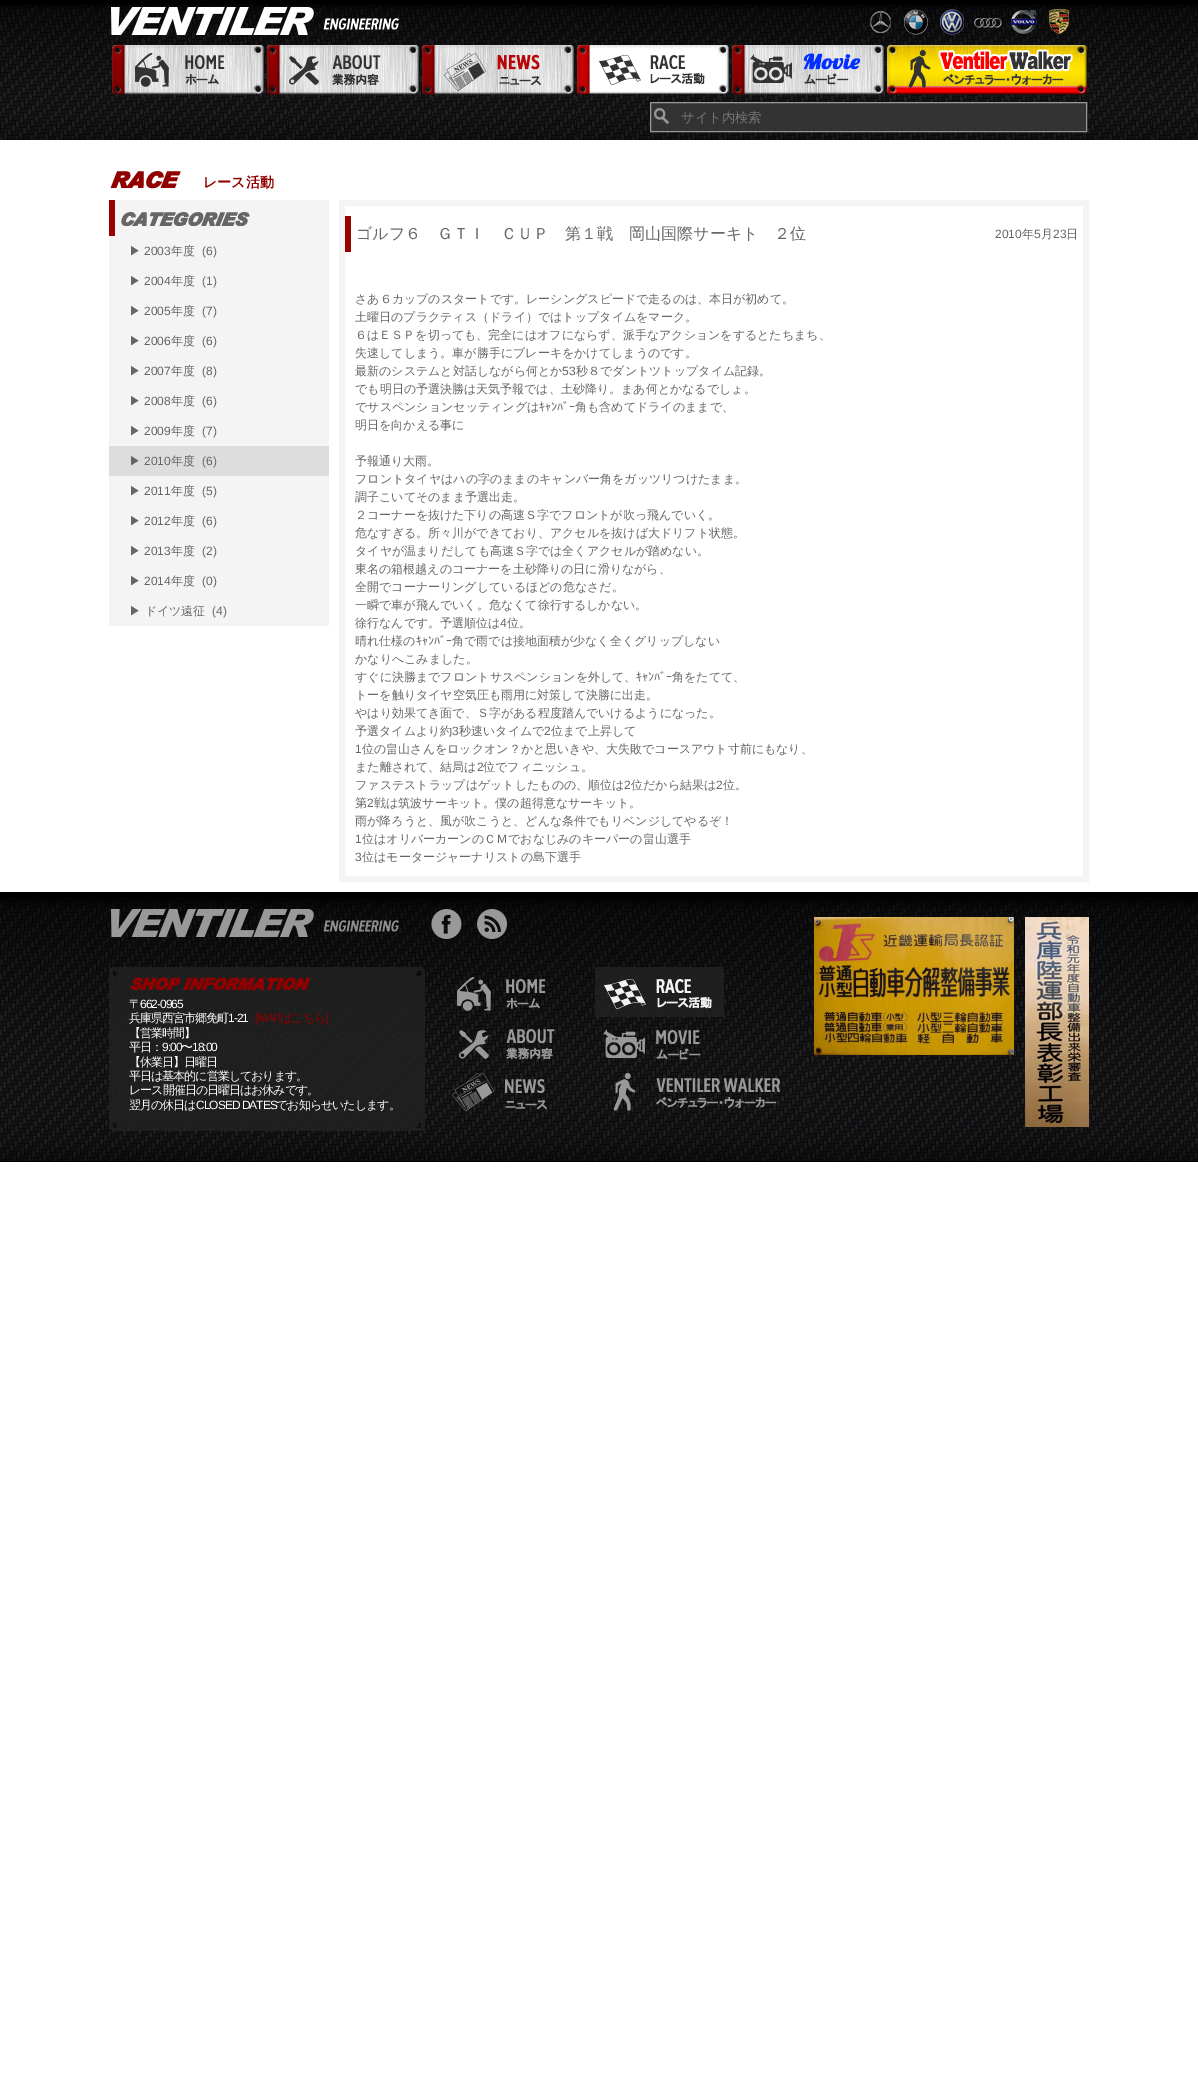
%!PS-Adobe-3.0
%%BoundingBox: 0 0 1198 2080
%%LanguageLevel: 3
%%Pages: 1
%%EndComments
%%BeginProlog
/drawimage { 5 dict begin { /h /w /y /x /name } { exch def } forall
  gsave x y translate w h scale
  w h 8 [w 0 0 h 0 0] name (r) file false 3 colorimage grestore end } def
%%EndProlog
%%BeginSetup
<< /PageSize [1198 2080] >> setpagedevice
%%EndSetup
%%Page: 1 1
0 2080 translate 1 -1 scale
4 setmiterlimit
1 setgray
0 0 1198 2080 rectfill
0 setgray
0 0 1198 4 rectfill
(images/1.raw) 0 4 1198 136 drawimage
(images/2.raw) 111 7 288 28 drawimage
(images/3.raw) 870 9 200 26 drawimage
(images/4.raw) 112 45 152 50 drawimage
(images/5.raw) 267 45 152 50 drawimage
(images/6.raw) 422 45 152 50 drawimage
(images/7.raw) 577 45 152 49 drawimage
(images/8.raw) 732 45 152 50 drawimage
(images/9.raw) 887 45 200 50 drawimage
0.2 setgray
651 103 435 28 rectfill
(images/10.raw) 654 108 15 16 drawimage
0.6 setgray
650.5 102.5 436 29 rectstroke
(images/11.raw) 110 171 71 18 drawimage
0.957 setgray
109 200 220 426 rectfill
(images/12.raw) 109 200 141 36 drawimage
0.867 setgray
109 446 220 30 rectfill
0.957 setgray
6 setlinewidth
342 203 744 676 rectstroke
0.6 0 0 setrgbcolor
345 216 6 36 rectfill
0 setgray
0 892 1198 270 rectfill
(images/13.raw) 0 898 1198 263 drawimage
(images/14.raw) 111 909 288 28 drawimage
(images/15.raw) 431 909 31 30 drawimage
(images/16.raw) 477 909 31 30 drawimage
(images/17.raw) 814 917 200 138 drawimage
(images/18.raw) 1025 917 64 210 drawimage
(images/19.raw) 109 967 316 164 drawimage
(images/20.raw) 130 977 181 13 drawimage
(images/21.raw) 457 977 89 34 drawimage
(images/22.raw) 595 967 129 50 drawimage
(images/23.raw) 459 1029 96 31 drawimage
(images/24.raw) 603 1029 98 31 drawimage
(images/25.raw) 452 1073 95 38 drawimage
(images/26.raw) 613 1072 167 39 drawimage
/WenQuanYiZenHei-Medium [13.25 0 0 -13.25 0 0] selectfont
0.459 setgray
681 122 moveto (サイト内検索) show
/WenQuanYiZenHei-Bold [14 0 0 -14 0 0] selectfont
0.565 0 0 setrgbcolor
203 187 moveto (レース活動) show
/WenQuanYiZenHei-Medium [12 0 0 -12 0 0] selectfont
0.4 setgray
129 255 moveto (▶) show
/LiberationSans-Regular [12 0 0 -12 0 0] selectfont
144 255 moveto (2003) show
/WenQuanYiZenHei-Medium [12 0 0 -12 0 0] selectfont
171 255 moveto (年度) show
/LiberationSans-Regular [12 0 0 -12 0 0] selectfont
202 255 moveto (\(6\)) show
/WenQuanYiZenHei-Medium [12 0 0 -12 0 0] selectfont
129 285 moveto (▶) show
/LiberationSans-Regular [12 0 0 -12 0 0] selectfont
144 285 moveto (2004) show
/WenQuanYiZenHei-Medium [12 0 0 -12 0 0] selectfont
171 285 moveto (年度) show
/LiberationSans-Regular [12 0 0 -12 0 0] selectfont
202 285 moveto (\(1\)) show
/WenQuanYiZenHei-Medium [12 0 0 -12 0 0] selectfont
129 315 moveto (▶) show
/LiberationSans-Regular [12 0 0 -12 0 0] selectfont
144 315 moveto (2005) show
/WenQuanYiZenHei-Medium [12 0 0 -12 0 0] selectfont
171 315 moveto (年度) show
/LiberationSans-Regular [12 0 0 -12 0 0] selectfont
202 315 moveto (\(7\)) show
/WenQuanYiZenHei-Medium [12 0 0 -12 0 0] selectfont
129 345 moveto (▶) show
/LiberationSans-Regular [12 0 0 -12 0 0] selectfont
144 345 moveto (2006) show
/WenQuanYiZenHei-Medium [12 0 0 -12 0 0] selectfont
171 345 moveto (年度) show
/LiberationSans-Regular [12 0 0 -12 0 0] selectfont
202 345 moveto (\(6\)) show
/WenQuanYiZenHei-Medium [12 0 0 -12 0 0] selectfont
129 375 moveto (▶) show
/LiberationSans-Regular [12 0 0 -12 0 0] selectfont
144 375 moveto (2007) show
/WenQuanYiZenHei-Medium [12 0 0 -12 0 0] selectfont
171 375 moveto (年度) show
/LiberationSans-Regular [12 0 0 -12 0 0] selectfont
202 375 moveto (\(8\)) show
/WenQuanYiZenHei-Medium [12 0 0 -12 0 0] selectfont
129 405 moveto (▶) show
/LiberationSans-Regular [12 0 0 -12 0 0] selectfont
144 405 moveto (2008) show
/WenQuanYiZenHei-Medium [12 0 0 -12 0 0] selectfont
171 405 moveto (年度) show
/LiberationSans-Regular [12 0 0 -12 0 0] selectfont
202 405 moveto (\(6\)) show
/WenQuanYiZenHei-Medium [12 0 0 -12 0 0] selectfont
129 435 moveto (▶) show
/LiberationSans-Regular [12 0 0 -12 0 0] selectfont
144 435 moveto (2009) show
/WenQuanYiZenHei-Medium [12 0 0 -12 0 0] selectfont
171 435 moveto (年度) show
/LiberationSans-Regular [12 0 0 -12 0 0] selectfont
202 435 moveto (\(7\)) show
/WenQuanYiZenHei-Medium [12 0 0 -12 0 0] selectfont
129 465 moveto (▶) show
/LiberationSans-Regular [12 0 0 -12 0 0] selectfont
144 465 moveto (2010) show
/WenQuanYiZenHei-Medium [12 0 0 -12 0 0] selectfont
171 465 moveto (年度) show
/LiberationSans-Regular [12 0 0 -12 0 0] selectfont
202 465 moveto (\(6\)) show
/WenQuanYiZenHei-Medium [12 0 0 -12 0 0] selectfont
129 495 moveto (▶) show
/LiberationSans-Regular [12 0 0 -12 0 0] selectfont
144 495 moveto (2011) show
/WenQuanYiZenHei-Medium [12 0 0 -12 0 0] selectfont
171 495 moveto (年度) show
/LiberationSans-Regular [12 0 0 -12 0 0] selectfont
202 495 moveto (\(5\)) show
/WenQuanYiZenHei-Medium [12 0 0 -12 0 0] selectfont
129 525 moveto (▶) show
/LiberationSans-Regular [12 0 0 -12 0 0] selectfont
144 525 moveto (2012) show
/WenQuanYiZenHei-Medium [12 0 0 -12 0 0] selectfont
171 525 moveto (年度) show
/LiberationSans-Regular [12 0 0 -12 0 0] selectfont
202 525 moveto (\(6\)) show
/WenQuanYiZenHei-Medium [12 0 0 -12 0 0] selectfont
129 555 moveto (▶) show
/LiberationSans-Regular [12 0 0 -12 0 0] selectfont
144 555 moveto (2013) show
/WenQuanYiZenHei-Medium [12 0 0 -12 0 0] selectfont
171 555 moveto (年度) show
/LiberationSans-Regular [12 0 0 -12 0 0] selectfont
202 555 moveto (\(2\)) show
/WenQuanYiZenHei-Medium [12 0 0 -12 0 0] selectfont
129 585 moveto (▶) show
/LiberationSans-Regular [12 0 0 -12 0 0] selectfont
144 585 moveto (2014) show
/WenQuanYiZenHei-Medium [12 0 0 -12 0 0] selectfont
171 585 moveto (年度) show
/LiberationSans-Regular [12 0 0 -12 0 0] selectfont
202 585 moveto (\(0\)) show
/WenQuanYiZenHei-Medium [12 0 0 -12 0 0] selectfont
129 615 moveto (▶ ドイツ遠征) show
/LiberationSans-Regular [12 0 0 -12 0 0] selectfont
212 615 moveto (\(4\)) show
/WenQuanYiZenHei-Medium [16 0 0 -16 0 0] selectfont
356 239 moveto (ゴルフ６　ＧＴＩ　ＣＵＰ　第１戦　岡山国際サーキト　２位) show
/LiberationSans-Regular [12 0 0 -12 0 0] selectfont
995 238 moveto (2010) show
/WenQuanYiZenHei-Medium [12 0 0 -12 0 0] selectfont
1022 238 moveto (年) show
/LiberationSans-Regular [12 0 0 -12 0 0] selectfont
1034 238 moveto (5) show
/WenQuanYiZenHei-Medium [12 0 0 -12 0 0] selectfont
1041 238 moveto (月) show
/LiberationSans-Regular [12 0 0 -12 0 0] selectfont
1053 238 moveto (23) show
/WenQuanYiZenHei-Medium [12 0 0 -12 0 0] selectfont
1066 238 moveto (日) show
355 303 moveto (さあ６カップのスタートです。レーシングスピードで走るのは、本日が初めて。) show
355 321 moveto (土曜日のプラクティス（ドライ）ではトップタイムをマーク。) show
355 339 moveto (６はＥＳＰを切っても、完全にはオフにならず、派手なアクションをするとたちまち、) show
355 357 moveto (失速してしまう。車が勝手にブレーキをかけてしまうのです。) show
355 375 moveto (最新のシステムと対話しながら何とか) show
/LiberationSans-Regular [12 0 0 -12 0 0] selectfont
562 375 moveto (53) show
/WenQuanYiZenHei-Medium [12 0 0 -12 0 0] selectfont
576 375 moveto (秒８でダントツトップタイム記録。) show
355 393 moveto (でも明日の予選決勝は天気予報では、土砂降り。まあ何とかなるでしょ。) show
355 411 moveto (でサスペンションセッティングは) show
/IPAPGothic-Regular [12 0 0 -12 0 0] selectfont
539 411 moveto (ｷｬﾝﾊﾞｰ) show
/WenQuanYiZenHei-Medium [12 0 0 -12 0 0] selectfont
575 411 moveto (角も含めてドライのままで、) show
355 429 moveto (明日を向かえる事に) show
355 465 moveto (予報通り大雨。) show
355 483 moveto (フロントタイヤはハの字のままのキャンバー角をガッツリつけたまま。) show
355 501 moveto (調子こいてそのまま予選出走。) show
355 519 moveto (２コーナーを抜けた下りの高速Ｓ字でフロントが吹っ飛んでいく。) show
355 537 moveto (危なすぎる。所々川ができており、アクセルを抜けば大ドリフト状態。) show
355 555 moveto (タイヤが温まりだしても高速Ｓ字では全くアクセルが踏めない。) show
355 573 moveto (東名の箱根越えのコーナーを土砂降りの日に滑りながら、) show
355 591 moveto (全開でコーナーリングしているほどの危なさだ。) show
355 609 moveto (一瞬で車が飛んでいく。危なくて徐行するしかない。) show
355 627 moveto (徐行なんです。予選順位は) show
/LiberationSans-Regular [12 0 0 -12 0 0] selectfont
500 627 moveto (4) show
/WenQuanYiZenHei-Medium [12 0 0 -12 0 0] selectfont
507 627 moveto (位。) show
355 645 moveto (晴れ仕様の) show
/IPAPGothic-Regular [12 0 0 -12 0 0] selectfont
416 645 moveto (ｷｬﾝﾊﾞｰ) show
/WenQuanYiZenHei-Medium [12 0 0 -12 0 0] selectfont
452 645 moveto (角で雨では接地面積が少なく全くグリップしない) show
355 663 moveto (かなりへこみました。) show
355 681 moveto (すぐに決勝までフロントサスペンションを外して、) show
/IPAPGothic-Regular [12 0 0 -12 0 0] selectfont
636 681 moveto (ｷｬﾝﾊﾞｰ) show
/WenQuanYiZenHei-Medium [12 0 0 -12 0 0] selectfont
672 681 moveto (角をたてて、) show
355 699 moveto (トーを触りタイヤ空気圧も雨用に対策して決勝に出走。) show
355 717 moveto (やはり効果てき面で、Ｓ字がある程度踏んでいけるようになった。) show
355 735 moveto (予選タイムより約) show
/LiberationSans-Regular [12 0 0 -12 0 0] selectfont
452 735 moveto (3) show
/WenQuanYiZenHei-Medium [12 0 0 -12 0 0] selectfont
459 735 moveto (秒速いタイムで) show
/LiberationSans-Regular [12 0 0 -12 0 0] selectfont
544 735 moveto (2) show
/WenQuanYiZenHei-Medium [12 0 0 -12 0 0] selectfont
551 735 moveto (位まで上昇して) show
/LiberationSans-Regular [12 0 0 -12 0 0] selectfont
355 753 moveto (1) show
/WenQuanYiZenHei-Medium [12 0 0 -12 0 0] selectfont
362 753 moveto (位の畠山さんをロックオン？かと思いきや、大失敗でコースアウト寸前にもなり、) show
355 771 moveto (また離されて、結局は) show
/LiberationSans-Regular [12 0 0 -12 0 0] selectfont
477 771 moveto (2) show
/WenQuanYiZenHei-Medium [12 0 0 -12 0 0] selectfont
483 771 moveto (位でフィニッシュ。) show
355 789 moveto (ファステストラップはゲットしたものの、順位は) show
/LiberationSans-Regular [12 0 0 -12 0 0] selectfont
624 789 moveto (2) show
/WenQuanYiZenHei-Medium [12 0 0 -12 0 0] selectfont
631 789 moveto (位だから結果は) show
/LiberationSans-Regular [12 0 0 -12 0 0] selectfont
716 789 moveto (2) show
/WenQuanYiZenHei-Medium [12 0 0 -12 0 0] selectfont
723 789 moveto (位。) show
355 807 moveto (第) show
/LiberationSans-Regular [12 0 0 -12 0 0] selectfont
367 807 moveto (2) show
/WenQuanYiZenHei-Medium [12 0 0 -12 0 0] selectfont
374 807 moveto (戦は筑波サーキット。僕の超得意なサーキット。) show
355 825 moveto (雨が降ろうと、風が吹こうと、どんな条件でもリベンジしてやるぞ！) show
/LiberationSans-Regular [12 0 0 -12 0 0] selectfont
355 843 moveto (1) show
/WenQuanYiZenHei-Medium [12 0 0 -12 0 0] selectfont
362 843 moveto (位はオリバーカーンのＣＭでおなじみのキーパーの畠山選手) show
/LiberationSans-Regular [12 0 0 -12 0 0] selectfont
355 861 moveto (3) show
/WenQuanYiZenHei-Medium [12 0 0 -12 0 0] selectfont
362 861 moveto (位はモータージャーナリストの島下選手) show
1 setgray
129 1008 moveto -1 0 (〒) ashow
/LiberationSans-Regular [12 0 0 -12 0 0] selectfont
140 1008 moveto -1 0 (662-0965) ashow
/WenQuanYiZenHei-Medium [12 0 0 -12 0 0] selectfont
129 1022 moveto -1 0 (兵庫県西宮市郷免町) ashow
/LiberationSans-Regular [12 0 0 -12 0 0] selectfont
228 1022 moveto -1 0 (1-21) ashow
0.565 0 0 setrgbcolor
255 1022 moveto -1 0 ([MAP) ashow
/WenQuanYiZenHei-Medium [12 0 0 -12 0 0] selectfont
280 1022 moveto -1 0 (はこちら) ashow
/LiberationSans-Regular [12 0 0 -12 0 0] selectfont
325 1022 moveto -1 0 (]) ashow
/WenQuanYiZenHei-Medium [12 0 0 -12 0 0] selectfont
1 setgray
129 1037 moveto -1 0 (【営業時間】) ashow
129 1051 moveto -1 0 (平日：) ashow
/LiberationSans-Regular [12 0 0 -12 0 0] selectfont
162 1051 moveto -1 0 (9:00) ashow
/WenQuanYiZenHei-Medium [12 0 0 -12 0 0] selectfont
181 1051 moveto -1 0 (〜) ashow
/LiberationSans-Regular [12 0 0 -12 0 0] selectfont
192 1051 moveto -1 0 (18:00) ashow
/WenQuanYiZenHei-Medium [12 0 0 -12 0 0] selectfont
129 1066 moveto -1 0 (【休業日】日曜日) ashow
129 1080 moveto -1 0 (平日は基本的に営業しております。) ashow
129 1094 moveto -1 0 (レース開催日の日曜日はお休みです。) ashow
129 1109 moveto -1 0 (翌月の休日は) ashow
/LiberationSans-Regular [12 0 0 -12 0 0] selectfont
196 1109 moveto -1 0 (CLOSED DATES) ashow
/WenQuanYiZenHei-Medium [12 0 0 -12 0 0] selectfont
276 1109 moveto -1 0 (でお知らせいたします。) ashow
showpage
%%EOF
